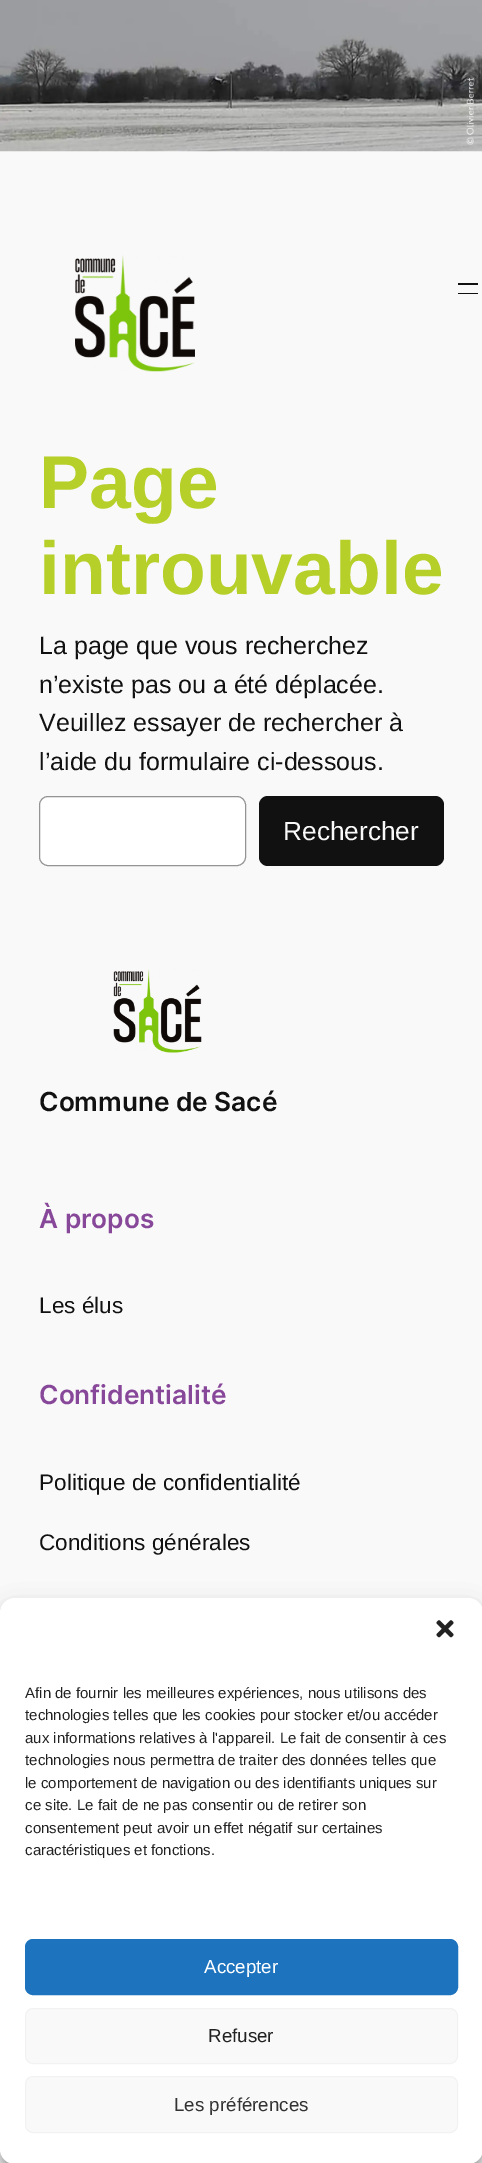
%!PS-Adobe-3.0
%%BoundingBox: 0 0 482 2163
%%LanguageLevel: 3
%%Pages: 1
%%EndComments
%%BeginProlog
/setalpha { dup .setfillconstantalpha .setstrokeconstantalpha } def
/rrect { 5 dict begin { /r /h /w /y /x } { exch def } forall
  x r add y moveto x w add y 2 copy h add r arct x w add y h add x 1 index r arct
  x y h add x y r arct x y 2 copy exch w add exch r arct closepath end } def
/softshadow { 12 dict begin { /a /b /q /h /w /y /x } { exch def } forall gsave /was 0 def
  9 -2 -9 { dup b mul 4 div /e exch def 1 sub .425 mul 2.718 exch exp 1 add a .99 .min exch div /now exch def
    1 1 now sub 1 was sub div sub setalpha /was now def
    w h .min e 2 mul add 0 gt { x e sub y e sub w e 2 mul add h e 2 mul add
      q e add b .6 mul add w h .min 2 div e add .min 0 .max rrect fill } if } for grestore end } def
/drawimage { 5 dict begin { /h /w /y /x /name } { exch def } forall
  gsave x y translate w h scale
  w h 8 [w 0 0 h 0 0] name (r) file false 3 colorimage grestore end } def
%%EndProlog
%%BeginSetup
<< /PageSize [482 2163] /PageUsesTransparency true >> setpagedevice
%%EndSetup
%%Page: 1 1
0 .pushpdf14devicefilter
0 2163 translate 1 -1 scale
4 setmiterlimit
0.976 setgray
0 0 482 2163 rectfill
(images/1.raw) 0 0 482 152 drawimage
(images/2.raw) 75 255 120 117 drawimage
0.067 setgray
458 283 20 2 rectfill
458 293 20 1 rectfill
1 setgray
39.5 796.5 206 69 8.5 rrect gsave fill grestore
0.58 setgray
stroke
0.067 setgray
259 796 185 70 9 rrect fill
(images/3.raw) 113 969 89 84 drawimage
0 setgray
0 1605 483 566 15 4 0.23 softshadow
0 1610 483 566 15 12.5 0.19 softshadow
1 setgray
0 1598 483 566 15 rrect fill
(images/4.raw) 436 1620 18 18 drawimage
0.118 0.451 0.745 setrgbcolor
25.5 1939.5 432 55 7.5 rrect gsave fill grestore
stroke
0.976 setgray
25.5 2008.5 432 55 7.5 rrect gsave fill grestore
0.949 setgray
stroke
0.976 setgray
25.5 2076.5 432 56 7.5 rrect gsave fill grestore
0.949 setgray
stroke
/LiberationSans-Bold [75 0 0 -75 0 0] selectfont
0.714 0.812 0.161 setrgbcolor
39 508 moveto (Page) show
39 594 moveto (introuvable) show
/LiberationSans-Regular [25 0 0 -25 0 0] selectfont
0.067 setgray
39 654 moveto (La page que vous recherchez) show
39 693 moveto (n’existe pas ou a été déplacée.) show
39 731 moveto (Veuillez essayer de rechercher à) show
39 770 moveto (l’aide du formulaire ci-dessous.) show
/LiberationSans-Regular [26.25 0 0 -26.25 0 0] selectfont
0.976 setgray
283 840 moveto (Rechercher) show
/Inter-SemiBold [26.25 0 0 -26.25 0 0] selectfont
0.067 setgray
39 1111 moveto (Commune de Sacé) show
0.533 0.282 0.604 setrgbcolor
39 1228 moveto (À propos) show
/LiberationSans-Regular [22.5 0 0 -22.5 0 0] selectfont
0.067 setgray
39 1313 moveto (Les élus) show
/Inter-SemiBold [26.25 0 0 -26.25 0 0] selectfont
0.533 0.282 0.604 setrgbcolor
39 1404 moveto (Confidentialité) show
/LiberationSans-Regular [22.5 0 0 -22.5 0 0] selectfont
0.067 setgray
39 1490 moveto (Politique de confidentialité) show
39 1550 moveto (Conditions générales) show
/LiberationSans-Regular [15 0 0 -15 0 0] selectfont
0.133 setgray
25 1698 moveto (Afin de fournir les meilleures expériences, nous utilisons des) show
25 1720 moveto (technologies telles que les cookies pour stocker et/ou accéder) show
25 1743 moveto (aux informations relatives à l'appareil. Le fait de consentir à ces) show
25 1765 moveto (technologies nous permettra de traiter des données telles que) show
25 1788 moveto (le comportement de navigation ou des identifiants uniques sur) show
25 1810 moveto (ce site. Le fait de ne pas consentir ou de retirer son) show
25 1833 moveto (consentement peut avoir un effet négatif sur certaines) show
25 1855 moveto (caractéristiques et fonctions.) show
/LiberationSans-Regular [18.75 0 0 -18.75 0 0] selectfont
1 setgray
204 1973 moveto (Accepter) show
0.133 setgray
208 2042 moveto (Refuser) show
0.2 setgray
174 2111 moveto (Les préférences) show
.poppdf14devicefilter showpage
%%EOF
